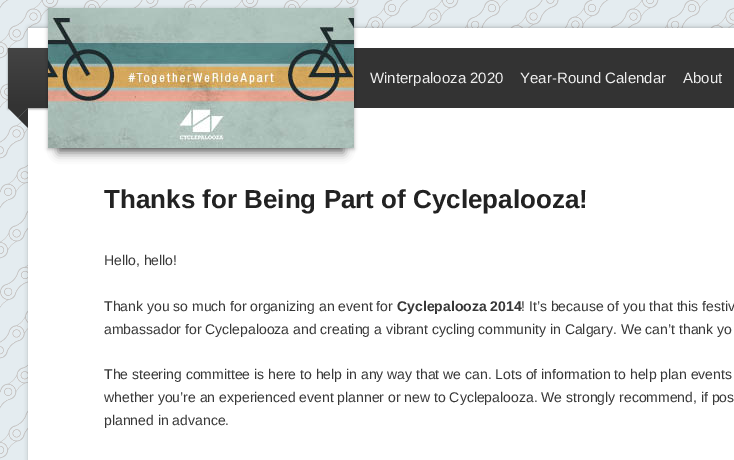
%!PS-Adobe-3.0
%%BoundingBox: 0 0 734 460
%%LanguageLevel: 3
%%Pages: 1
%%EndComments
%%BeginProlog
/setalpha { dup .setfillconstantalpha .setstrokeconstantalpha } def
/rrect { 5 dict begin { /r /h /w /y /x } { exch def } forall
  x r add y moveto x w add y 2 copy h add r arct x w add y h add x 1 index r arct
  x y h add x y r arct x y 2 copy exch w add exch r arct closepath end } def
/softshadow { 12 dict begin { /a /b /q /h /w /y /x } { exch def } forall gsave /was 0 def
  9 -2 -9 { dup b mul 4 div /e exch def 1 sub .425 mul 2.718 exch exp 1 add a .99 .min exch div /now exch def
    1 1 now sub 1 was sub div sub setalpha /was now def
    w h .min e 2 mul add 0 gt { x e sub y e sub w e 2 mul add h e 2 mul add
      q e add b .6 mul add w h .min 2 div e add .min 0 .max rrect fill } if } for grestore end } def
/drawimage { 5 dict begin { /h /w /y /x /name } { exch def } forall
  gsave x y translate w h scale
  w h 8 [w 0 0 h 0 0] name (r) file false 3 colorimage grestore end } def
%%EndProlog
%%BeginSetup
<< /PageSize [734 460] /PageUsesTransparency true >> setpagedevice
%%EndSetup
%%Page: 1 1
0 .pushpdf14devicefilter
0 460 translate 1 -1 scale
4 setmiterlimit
1 setgray
0 0 734 460 rectfill
(images/1.raw) 0 0 734 460 drawimage
0 setgray
29 28 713 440 0 2.5 0.3 softshadow
1 setgray
28 28 706 432 rectfill
0 setgray
8 49 40 60 0 1 0.4 softshadow
gsave newpath 8 48 moveto 48 48 lineto 48 108 lineto 8 108 lineto closepath clip newpath
<< /ShadingType 2 /ColorSpace /DeviceRGB /Coords [28 48 28 108] /Extend [true true] /Function << /FunctionType 2 /Domain [0 1] /C0 [0.267 0.267 0.267] /C1 [0.2 0.2 0.2] /N 1 >> >> shfill grestore
0.2 setgray
354 48 380 60 rectfill
0 setgray
48 9 306 140 0 2 0.3 softshadow
58 33 286 120 0 5 0.5 softshadow
(images/2.raw) 48 8 306 140 drawimage
0.2 setgray
newpath 8 108 moveto 28 108 lineto 18 118 lineto closepath fill
newpath 28 108 moveto 28 128 lineto 18 118 lineto closepath fill
/LiberationSans-Regular [15 0 0 -15 0 0] selectfont
0.933 setgray
370 83 moveto (Winterpalooza 2020) show
520 83 moveto (Year-Round Calendar) show
683 83 moveto (About) show
/LiberationSans-Bold [26 0 0 -26 0 0] selectfont
0.133 setgray
104 208 moveto (Thanks for Being Part of Cyclepalooza!) show
/LiberationSans-Regular [14 0 0 -14 0 0] selectfont
0.216 setgray
104 265 moveto (Hello, hello!) show
104 311 moveto (Thank you so much for organizing an event for) show
/LiberationSans-Bold [14 0 0 -14 0 0] selectfont
397 311 moveto (Cyclepalooza 2014) show
/LiberationSans-Regular [14 0 0 -14 0 0] selectfont
521 311 moveto (! It’s because of you that this festiv) show
104 334 moveto (ambassador for Cyclepalooza and creating a vibrant cycling community in Calgary. We can’t thank yo) show
104 379 moveto (The steering committee is here to help in any way that we can. Lots of information to help plan events) show
104 402 moveto (whether you’re an experienced event planner or new to Cyclepalooza. We strongly recommend, if pos) show
104 425 moveto (planned in advance.) show
.poppdf14devicefilter showpage
%%EOF
